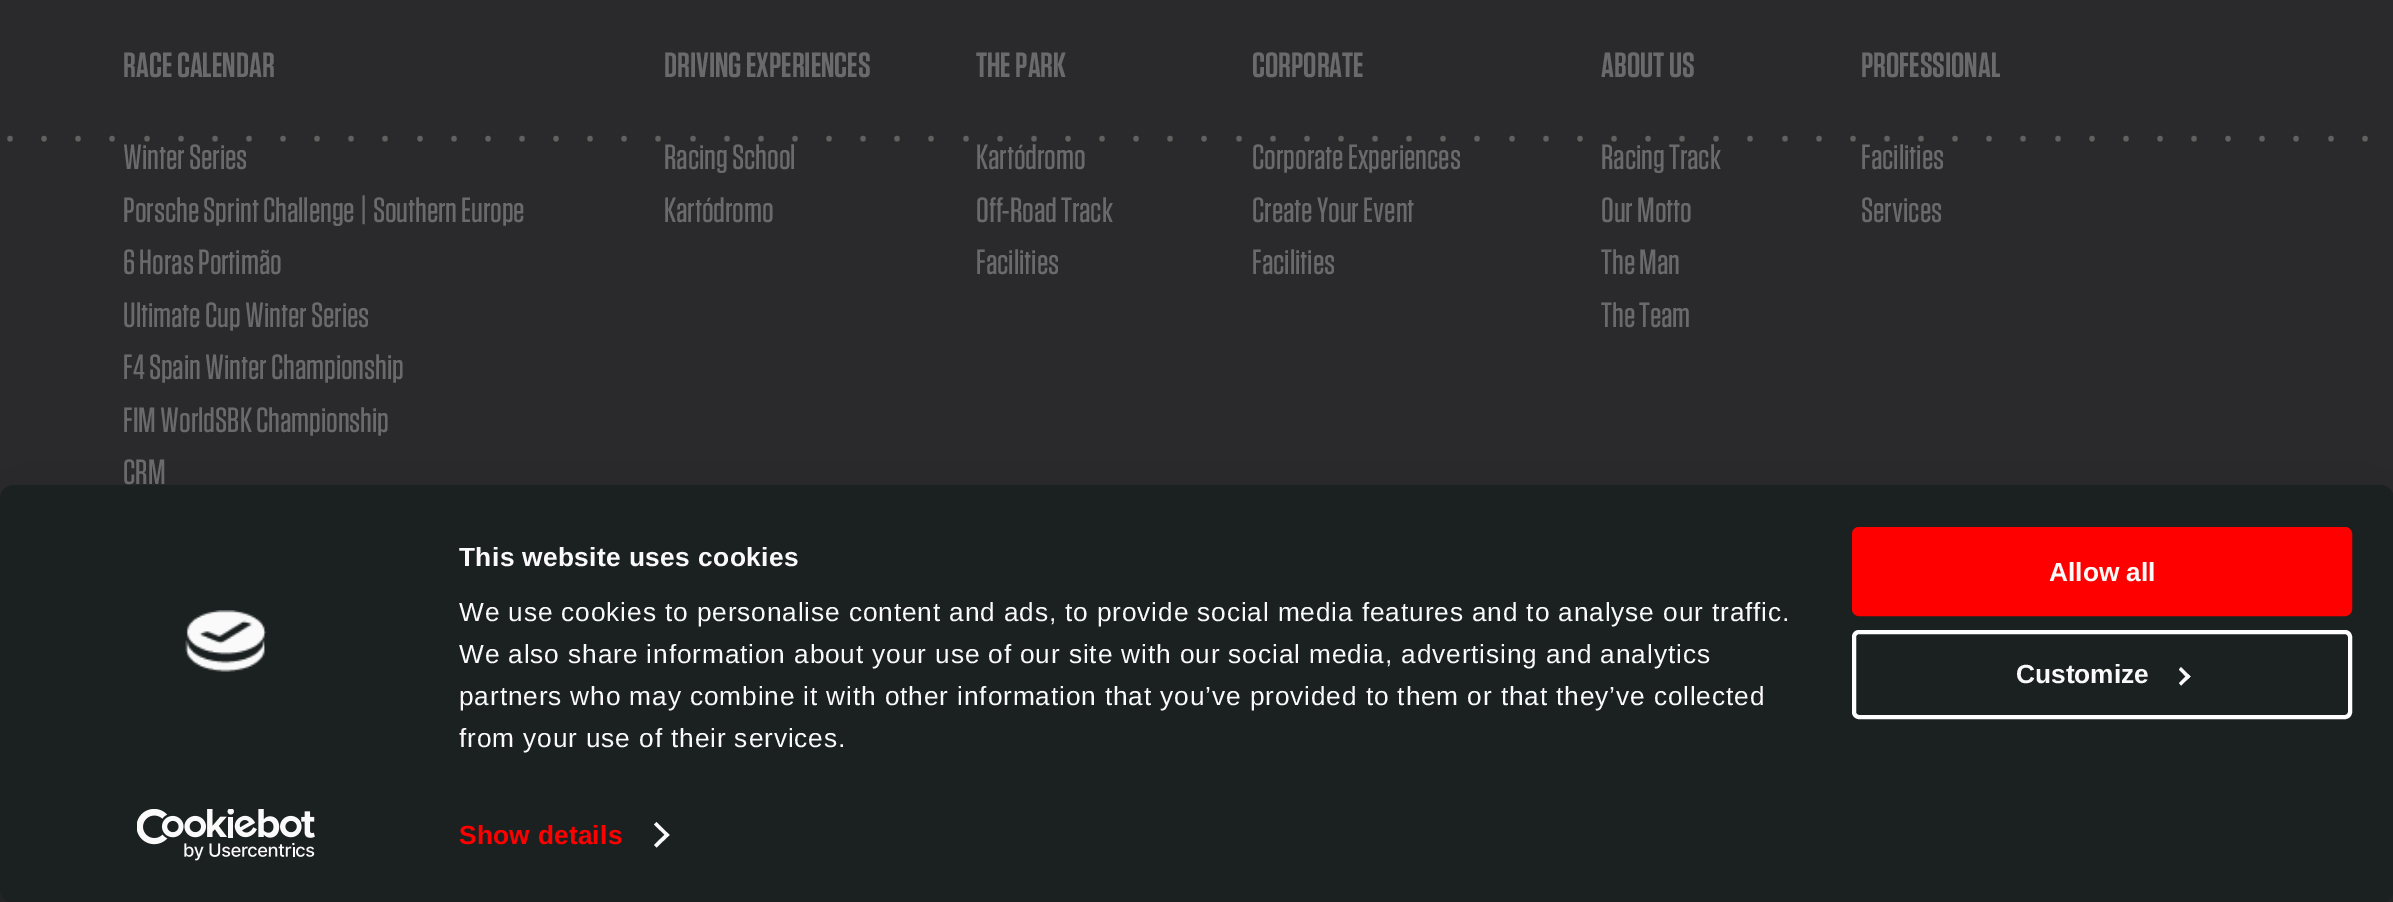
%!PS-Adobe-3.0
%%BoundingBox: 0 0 2393 902
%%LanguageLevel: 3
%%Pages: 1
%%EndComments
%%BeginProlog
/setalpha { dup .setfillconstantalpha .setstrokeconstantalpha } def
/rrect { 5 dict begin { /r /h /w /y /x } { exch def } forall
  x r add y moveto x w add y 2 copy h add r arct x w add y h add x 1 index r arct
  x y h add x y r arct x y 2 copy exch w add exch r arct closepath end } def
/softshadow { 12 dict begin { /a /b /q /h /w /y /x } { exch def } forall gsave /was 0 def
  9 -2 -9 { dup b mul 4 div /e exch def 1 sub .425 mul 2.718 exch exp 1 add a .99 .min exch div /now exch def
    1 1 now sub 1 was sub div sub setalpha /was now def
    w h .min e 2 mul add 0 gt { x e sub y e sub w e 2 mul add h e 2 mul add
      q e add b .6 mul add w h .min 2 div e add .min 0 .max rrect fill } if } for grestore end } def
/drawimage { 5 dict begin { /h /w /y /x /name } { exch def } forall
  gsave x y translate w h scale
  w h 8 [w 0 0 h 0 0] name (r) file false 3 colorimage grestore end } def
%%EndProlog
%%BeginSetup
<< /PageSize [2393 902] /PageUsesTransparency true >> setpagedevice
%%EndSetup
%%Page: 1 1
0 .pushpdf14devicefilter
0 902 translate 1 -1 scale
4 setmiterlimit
0.165 0.161 0.173 setrgbcolor
0 0 2393 902 rectfill
0 setgray
0 537 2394 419 14 61 0.3 softshadow
0.106 0.125 0.125 setrgbcolor
0 485 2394 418 14 rrect fill
(images/1.raw) 185 610 81 62 drawimage
(images/2.raw) 137 809 178 52 drawimage
0.98 setgray
newpath 656.5 822 moveto 669.5 835 lineto 667 837 lineto 654 824.5 lineto closepath fill
newpath 667 832.5 moveto 669.5 835 lineto 656.5 847.5 lineto 654 845 lineto closepath fill
1 0 0 setrgbcolor
1854 529 496 85 5 rrect gsave fill grestore
4 setlinewidth
stroke
1 setgray
1854 632 496 85 5 rrect stroke
0.98 setgray
newpath 2181 667 moveto 2190.5 676.5 lineto 2188 679 lineto 2179 669.5 lineto closepath fill
newpath 2188 674 moveto 2190.5 676.5 lineto 2181 685.5 lineto 2179 683 lineto closepath fill
/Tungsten-SemiBold [35 0 0 -35 0 0] selectfont
0.416 0.412 0.42 setrgbcolor
123 77 moveto (RACE CALENDAR) show
/Tungsten-Medium [35 0 0 -35 0 0] selectfont
123 169 moveto (Winter Series) show
123 222 moveto (Porsche Sprint Challenge | Southern Europe) show
123 274 moveto (6 Horas Portimão) show
123 327 moveto (Ultimate Cup Winter Series) show
123 379 moveto (F4 Spain Winter Championship) show
123 432 moveto (FIM WorldSBK Championship) show
123 484 moveto (CRM) show
/Tungsten-SemiBold [35 0 0 -35 0 0] selectfont
664 77 moveto (DRIVING EXPERIENCES) show
/Tungsten-Medium [35 0 0 -35 0 0] selectfont
664 169 moveto (Racing School) show
664 222 moveto (Kartódromo) show
/Tungsten-SemiBold [35 0 0 -35 0 0] selectfont
976 77 moveto (THE PARK) show
/Tungsten-Medium [35 0 0 -35 0 0] selectfont
976 169 moveto (Kartódromo) show
976 222 moveto (Off-Road Track) show
976 274 moveto (Facilities) show
/Tungsten-SemiBold [35 0 0 -35 0 0] selectfont
1252 77 moveto (CORPORATE) show
/Tungsten-Medium [35 0 0 -35 0 0] selectfont
1252 169 moveto (Corporate Experiences) show
1252 222 moveto (Create Your Event) show
1252 274 moveto (Facilities) show
/Tungsten-SemiBold [35 0 0 -35 0 0] selectfont
1601 77 moveto (ABOUT US) show
/Tungsten-Medium [35 0 0 -35 0 0] selectfont
1601 169 moveto (Racing Track) show
1601 222 moveto (Our Motto) show
1601 274 moveto (The Man) show
1601 327 moveto (The Team) show
/Tungsten-SemiBold [35 0 0 -35 0 0] selectfont
1861 77 moveto (PROFESSIONAL) show
/Tungsten-Medium [35 0 0 -35 0 0] selectfont
1861 169 moveto (Facilities) show
1861 222 moveto (Services) show
/NotoSans-Medium [40.25 0 0 -40.25 0 0] selectfont
0.384 0.38 0.376 setrgbcolor
0 141 moveto 14 0 (․․․․․․․․․․․․․․․․․․․․․․․․․․․․․․․․․․․․․․․․․․․․․․․․․․․․․․․․․․․․․․․․․․․․․․) ashow
/LiberationSans-Bold [26.25 0 0 -26.25 0 0] selectfont
0.98 setgray
459 566 moveto 0.4 0 (This website uses cookies) ashow
/LiberationSans-Regular [26.25 0 0 -26.25 0 0] selectfont
459 621 moveto 0.88 0 (We use cookies to personalise content and ads, to provide social media features and to analyse our traffic.) ashow
459 663 moveto 0.88 0 (We also share information about your use of our site with our social media, advertising and analytics) ashow
459 705 moveto 0.88 0 (partners who may combine it with other information that you’ve provided to them or that they’ve collected) ashow
459 747 moveto 0.88 0 (from your use of their services.) ashow
/LiberationSans-Bold [26.25 0 0 -26.25 0 0] selectfont
1 0 0 setrgbcolor
459 844 moveto 0.25 0 (Show details) ashow
0.98 setgray
2049 581 moveto (Allow all) show
2016 683 moveto (Customize) show
.poppdf14devicefilter showpage
%%EOF
